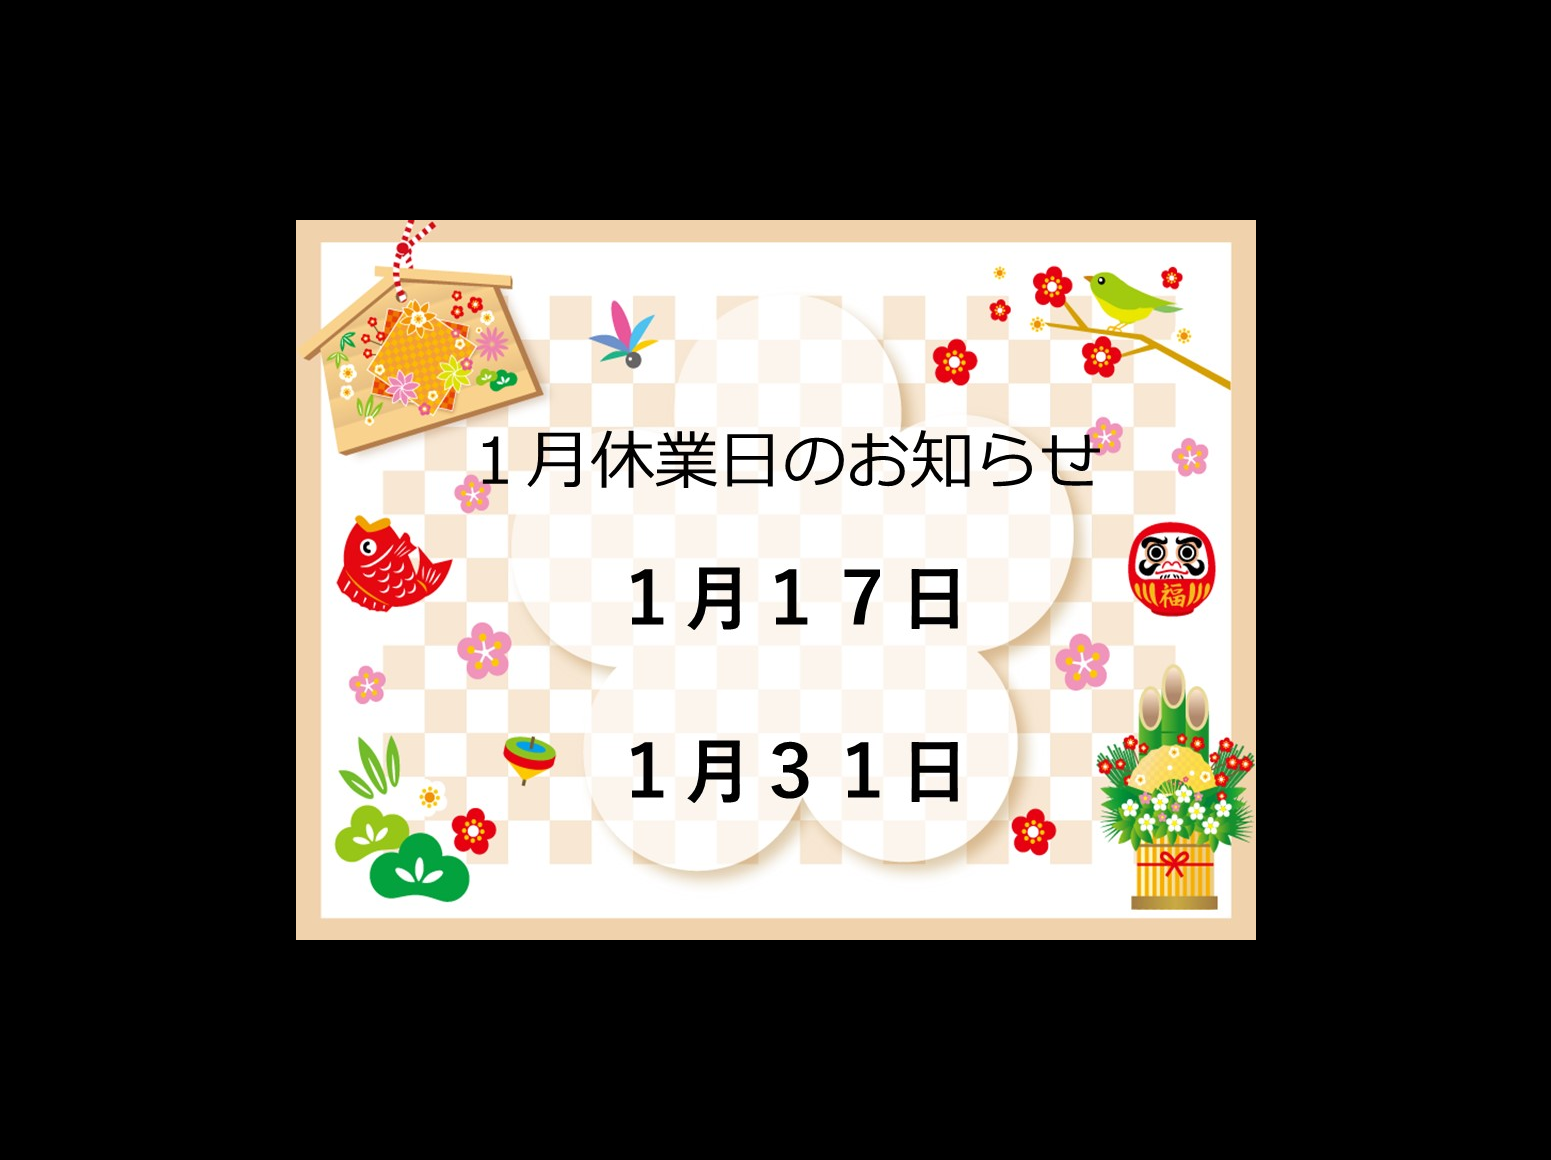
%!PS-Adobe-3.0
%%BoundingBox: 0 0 1551 1160
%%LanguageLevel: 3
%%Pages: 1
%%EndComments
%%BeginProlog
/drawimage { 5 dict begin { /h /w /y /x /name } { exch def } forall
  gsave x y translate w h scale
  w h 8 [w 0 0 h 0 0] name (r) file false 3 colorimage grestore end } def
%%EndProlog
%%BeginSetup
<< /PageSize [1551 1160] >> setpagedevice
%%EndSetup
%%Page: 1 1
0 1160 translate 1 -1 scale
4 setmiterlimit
0 setgray
0 0 1551 1160 rectfill
(images/1.raw) 296 220 960 720 drawimage
showpage
%%EOF
